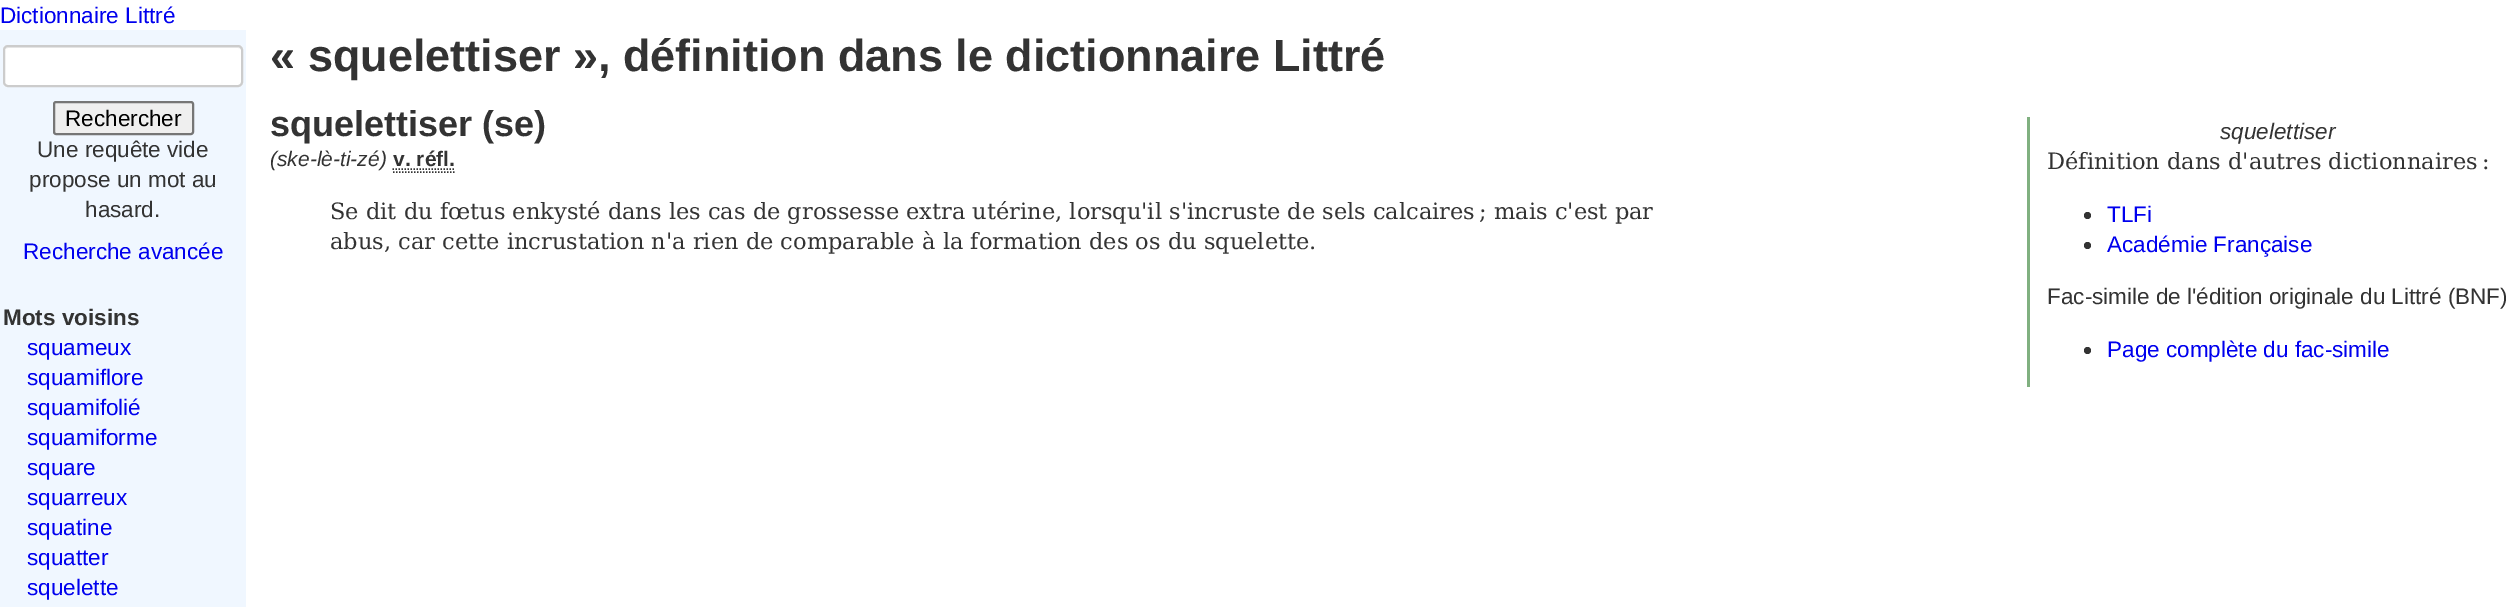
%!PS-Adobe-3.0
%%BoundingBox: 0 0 2519 607
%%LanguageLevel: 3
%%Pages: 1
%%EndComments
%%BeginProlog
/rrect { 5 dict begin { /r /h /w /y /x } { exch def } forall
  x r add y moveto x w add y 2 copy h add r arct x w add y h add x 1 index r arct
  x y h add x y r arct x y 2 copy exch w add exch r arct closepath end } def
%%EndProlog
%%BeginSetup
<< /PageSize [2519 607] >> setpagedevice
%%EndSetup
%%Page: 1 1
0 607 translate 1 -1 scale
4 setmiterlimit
1 setgray
0 0 2519 607 rectfill
0.941 0.969 1 setrgbcolor
0 30 246 577 rectfill
1 setgray
3 45 240 42 5 rrect fill
0.929 setgray
newpath 8 48 moveto 238 48 lineto 240 48 242 49 242 51 curveto 242 50 lineto 242 48 241 47 239 47 curveto 8 47 lineto 7 47 6 48 5 49 curveto closepath fill
0.8 setgray
2 setlinewidth
4 46 238 40 4 rrect stroke
0.937 setgray
54 102 139 32 2 rrect gsave fill grestore
0.463 setgray
stroke
0.2 setgray
1.5 setlinewidth
[1.5 1.5] 0 setdash
newpath 393 172 moveto 454.5 172 lineto 392.5 169 moveto 454.5 169 lineto stroke
0.502 0.69 0.502 setrgbcolor
2027 117 3 270 rectfill
0.2 setgray
newpath 2087.5 215.5 3.5 0 360 arc closepath fill
newpath 2087.5 245.5 3.5 0 360 arc closepath fill
newpath 2087.5 350.5 3.5 0 360 arc closepath fill
/LiberationSans-Regular [22.5 0 0 -22.5 0 0] selectfont
0 0 0.933 setrgbcolor
0 23 moveto (Dictionnaire Littré) show
0 setgray
65 126 moveto (Rechercher) show
0.2 setgray
37 157 moveto (Une requête vide) show
29 187 moveto (propose un mot au) show
85 217 moveto (hasard.) show
0 0 0.933 setrgbcolor
23 259 moveto (Recherche avancée) show
/LiberationSans-Bold [22.5 0 0 -22.5 0 0] selectfont
0.2 setgray
3 325 moveto (Mots voisins) show
/LiberationSans-Regular [22.5 0 0 -22.5 0 0] selectfont
0 0 0.933 setrgbcolor
27 355 moveto (squameux) show
27 385 moveto (squamiflore) show
27 415 moveto (squamifolié) show
27 445 moveto (squamiforme) show
27 475 moveto (square) show
27 505 moveto (squarreux) show
27 535 moveto (squatine) show
27 565 moveto (squatter) show
27 595 moveto (squelette) show
/LiberationSans-Bold [45 0 0 -45 0 0] selectfont
0.2 setgray
270 71 moveto (« squelettiser », définition dans le dictionnaire Littré) show
/LiberationSans-Bold [36 0 0 -36 0 0] selectfont
270 136 moveto (squelettiser \(se\)) show
/LiberationSans-Italic [21 0 0 -21 0 0] selectfont
270 166 moveto (\(ske-lè-ti-zé\)) show
/LiberationSans-Bold [21 0 0 -21 0 0] selectfont
393 166 moveto (v. réfl.) show
/DejaVuSerif-Regular [22.5 0 0 -22.5 0 0] selectfont
330 219 moveto (Se dit du fœtus enkysté dans les cas de grossesse extra utérine, lorsqu'il s'incruste de sels calcaires ; mais c'est par) show
330 249 moveto (abus, car cette incrustation n'a rien de comparable à la formation des os du squelette.) show
/LiberationSans-Italic [22.5 0 0 -22.5 0 0] selectfont
2220 139 moveto (squelettiser) show
/DejaVuSerif-Regular [22.5 0 0 -22.5 0 0] selectfont
2047 169 moveto (Définition dans d'autres dictionnaires :) show
/LiberationSans-Regular [22.5 0 0 -22.5 0 0] selectfont
0 0 0.933 setrgbcolor
2107 222 moveto (TLFi) show
2107 252 moveto (Académie Française) show
0.2 setgray
2047 304 moveto (Fac-simile de l'édition originale du Littré \(BNF\)) show
0 0 0.933 setrgbcolor
2107 357 moveto (Page complète du fac-simile) show
showpage
%%EOF
